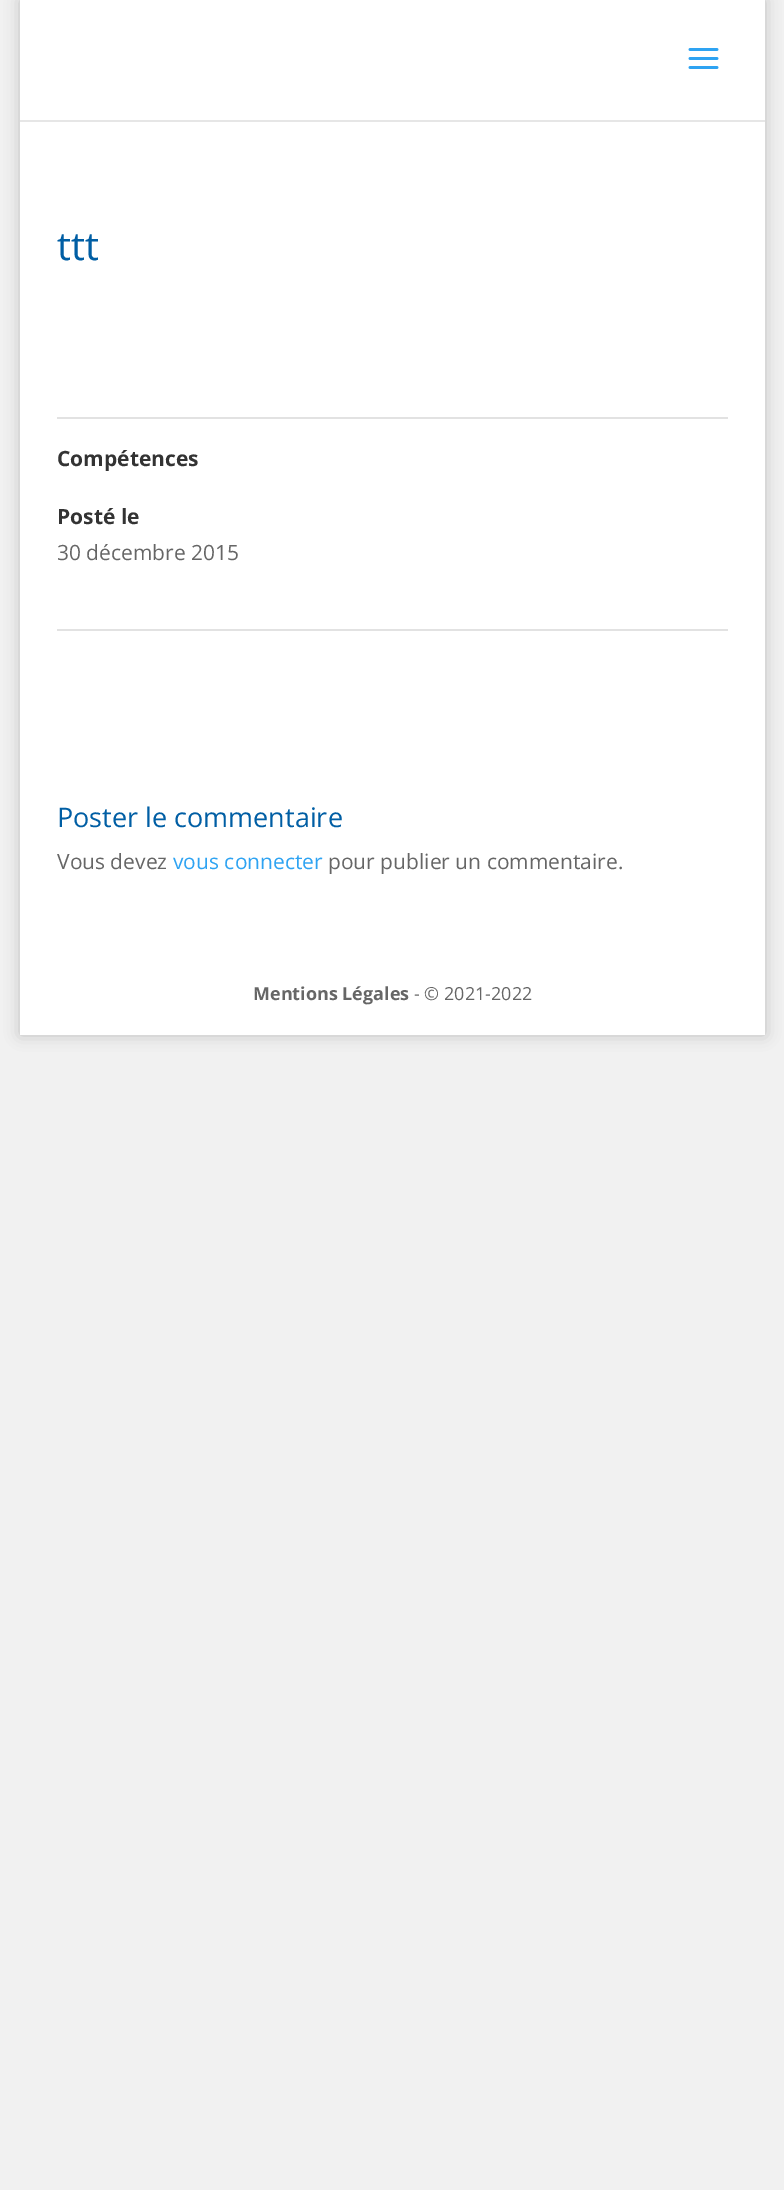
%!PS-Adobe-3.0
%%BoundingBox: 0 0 784 2190
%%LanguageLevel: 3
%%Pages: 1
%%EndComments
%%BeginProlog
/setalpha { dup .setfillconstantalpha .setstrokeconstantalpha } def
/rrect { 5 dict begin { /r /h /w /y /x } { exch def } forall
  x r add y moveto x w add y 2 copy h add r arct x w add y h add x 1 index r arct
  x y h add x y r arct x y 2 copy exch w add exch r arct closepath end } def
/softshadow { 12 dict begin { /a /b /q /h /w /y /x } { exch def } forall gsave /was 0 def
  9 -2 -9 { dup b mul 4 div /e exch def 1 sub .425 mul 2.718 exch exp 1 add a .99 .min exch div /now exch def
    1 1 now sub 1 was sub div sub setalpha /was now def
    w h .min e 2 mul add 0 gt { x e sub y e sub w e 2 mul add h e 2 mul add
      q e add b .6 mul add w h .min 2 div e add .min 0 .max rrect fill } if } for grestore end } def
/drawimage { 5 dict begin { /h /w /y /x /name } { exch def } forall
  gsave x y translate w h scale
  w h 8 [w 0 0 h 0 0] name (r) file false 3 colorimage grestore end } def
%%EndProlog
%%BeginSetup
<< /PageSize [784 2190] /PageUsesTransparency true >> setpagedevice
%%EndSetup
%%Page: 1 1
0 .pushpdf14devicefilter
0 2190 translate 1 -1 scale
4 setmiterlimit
0.945 setgray
0 0 784 2190 rectfill
0 setgray
20 0 745 1035 0 7.5 0.2 softshadow
0.902 setgray
20 120 745 2 rectfill
1 setgray
20 0 745 120 rectfill
(images/1.raw) 688 48 31 21 drawimage
20 122 745 913 rectfill
0.886 setgray
57 417 671 2 rectfill
57 629 671 2 rectfill
/OpenSans-Regular [39 0 0 -39 0 0] selectfont
0 0.369 0.643 setrgbcolor
57 260 moveto (ttt) show
/OpenSans-Bold [21 0 0 -21 0 0] selectfont
0.2 setgray
57 466 moveto (Compétences) show
57 524 moveto (Posté le) show
/OpenSans-Regular [21 0 0 -21 0 0] selectfont
0.4 setgray
57 560 moveto (30 décembre 2015) show
/OpenSans-Regular [27 0 0 -27 0 0] selectfont
0 0.369 0.643 setrgbcolor
57 827 moveto (Poster le commentaire) show
/OpenSans-Regular [21 0 0 -21 0 0] selectfont
0.4 setgray
57 869 moveto (Vous devez) show
0.18 0.639 0.949 setrgbcolor
173 869 moveto (vous connecter) show
0.4 setgray
328 869 moveto (pour publier un commentaire.) show
/OpenSans-Bold [18 0 0 -18 0 0] selectfont
253 1000 moveto (Mentions Légales) show
/OpenSans-Regular [18 0 0 -18 0 0] selectfont
414 1000 moveto (- © 2021-2022) show
.poppdf14devicefilter showpage
%%EOF
